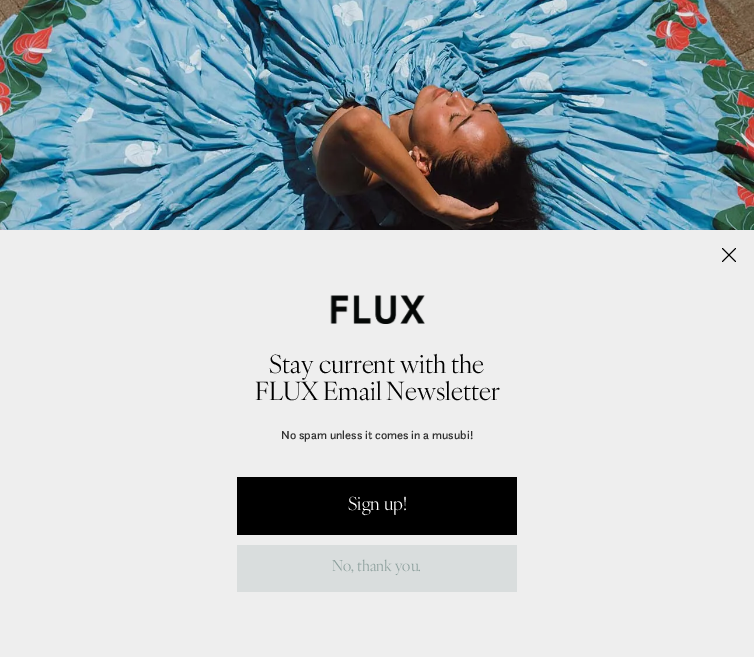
%!PS-Adobe-3.0
%%BoundingBox: 0 0 754 657
%%LanguageLevel: 3
%%Pages: 1
%%EndComments
%%BeginProlog
/drawimage { 5 dict begin { /h /w /y /x /name } { exch def } forall
  gsave x y translate w h scale
  w h 8 [w 0 0 h 0 0] name (r) file false 3 colorimage grestore end } def
%%EndProlog
%%BeginSetup
<< /PageSize [754 657] >> setpagedevice
%%EndSetup
%%Page: 1 1
0 657 translate 1 -1 scale
4 setmiterlimit
0.933 setgray
0 0 754 657 rectfill
(images/1.raw) 0 0 754 230 drawimage
0 setgray
0.8 setlinewidth
1 setlinecap
newpath 722.5 248.5 moveto 735.5 261.5 lineto 735.5 248.5 moveto 722.5 261.5 lineto stroke
(images/2.raw) 330 295 95 29 drawimage
237 477 280 58 rectfill
0.851 0.867 0.867 setrgbcolor
237 545 280 47 rectfill
/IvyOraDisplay-Regular [25 0 0 -25 0 0] selectfont
0 setgray
269 373 moveto (Stay current with the) show
255 400 moveto (FLUX Email Newsletter) show
/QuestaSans-Medium [12 0 0 -12 0 0] selectfont
0.188 setgray
281 439 moveto (No spam unless it comes in a musubi!) show
/IvyOraDisplay-Regular [18 0 0 -18 0 0] selectfont
1 setgray
348 510 moveto (Sign up!) show
/IvyOraDisplay-Regular [15 0 0 -15 0 0] selectfont
0.557 0.631 0.62 setrgbcolor
332 571 moveto (No, thank you.) show
showpage
%%EOF
